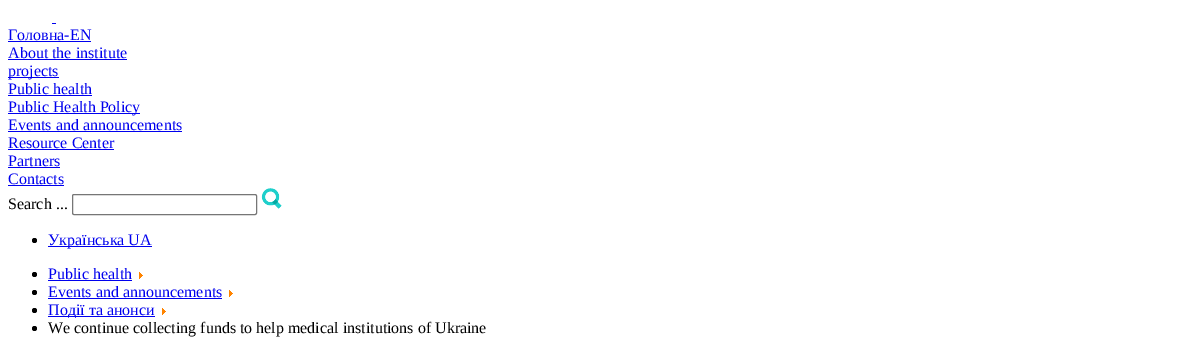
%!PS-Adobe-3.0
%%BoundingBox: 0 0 1195 362
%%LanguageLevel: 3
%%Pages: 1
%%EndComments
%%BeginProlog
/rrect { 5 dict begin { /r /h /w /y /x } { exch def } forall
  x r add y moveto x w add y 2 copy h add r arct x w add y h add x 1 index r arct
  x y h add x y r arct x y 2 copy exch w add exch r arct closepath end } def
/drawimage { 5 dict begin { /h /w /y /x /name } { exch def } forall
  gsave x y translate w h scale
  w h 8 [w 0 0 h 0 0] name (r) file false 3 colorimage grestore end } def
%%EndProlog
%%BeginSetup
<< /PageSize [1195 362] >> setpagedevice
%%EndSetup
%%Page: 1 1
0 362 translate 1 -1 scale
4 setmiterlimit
1 setgray
0 0 1195 362 rectfill
0 0 0.933 setrgbcolor
52 23 4 1 rectfill
8 41 83 1 rectfill
8 59 119 1 rectfill
8 77 51 1 rectfill
8 95 84 1 rectfill
8 113 132 1 rectfill
8 131 174 1 rectfill
8 149 106 1 rectfill
8 167 52 1 rectfill
8 185 56 1 rectfill
0.463 setgray
72.5 194.5 184 20 1.5 rrect stroke
(images/1.raw) 261 188 21 21 drawimage
0 setgray
newpath 34.5 240.5 2.5 0 360 arc closepath fill
0 0 0.933 setrgbcolor
48 246 104 1 rectfill
0 setgray
newpath 34.5 274.5 2.5 0 360 arc closepath fill
0 0 0.933 setrgbcolor
48 280 84 1 rectfill
(images/2.raw) 139 272 4 7 drawimage
0 setgray
newpath 34.5 292.5 2.5 0 360 arc closepath fill
0 0 0.933 setrgbcolor
48 298 174 1 rectfill
(images/2.raw) 229 290 4 7 drawimage
0 setgray
newpath 34.5 310.5 2.5 0 360 arc closepath fill
0 0 0.933 setrgbcolor
48 316 107 1 rectfill
(images/2.raw) 162 308 4 7 drawimage
0 setgray
newpath 34.5 328.5 2.5 0 360 arc closepath fill
/LiberationSerif-Regular [16 0 0 -16 0 0] selectfont
0 0 0.933 setrgbcolor
8 40 moveto (Головна-EN) show
8 58 moveto (About the institute) show
8 76 moveto (projects) show
8 94 moveto (Public health) show
8 112 moveto (Public Health Policy) show
8 130 moveto (Events and announcements) show
8 148 moveto (Resource Center) show
8 166 moveto (Partners) show
8 184 moveto (Contacts) show
0 setgray
8 209 moveto (Search ...) show
0 0 0.933 setrgbcolor
48 245 moveto (Українська UA) show
48 279 moveto (Public health) show
48 297 moveto (Events and announcements) show
48 315 moveto (Події та анонси) show
0 setgray
48 333 moveto (We continue collecting funds to help medical institutions of Ukraine) show
showpage
%%EOF
